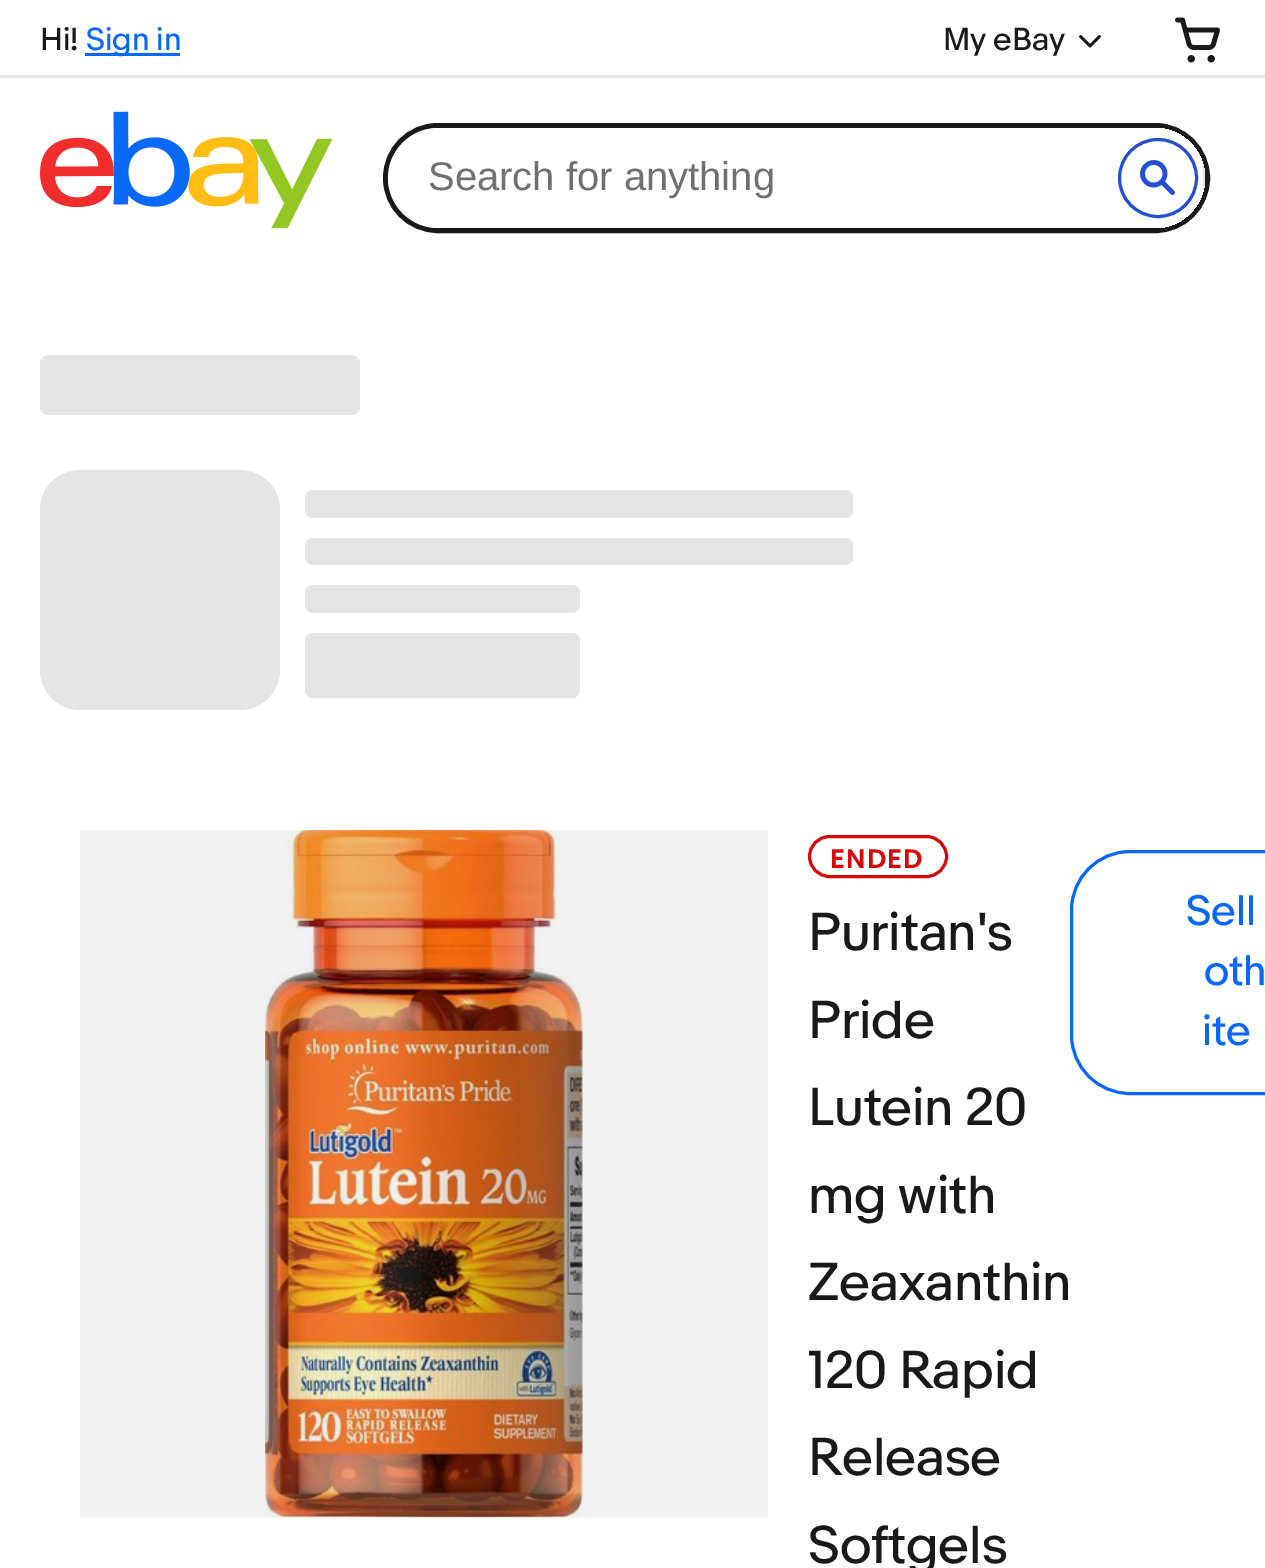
%!PS-Adobe-3.0
%%BoundingBox: 0 0 1265 1568
%%LanguageLevel: 3
%%Pages: 1
%%EndComments
%%BeginProlog
/setalpha { dup .setfillconstantalpha .setstrokeconstantalpha } def
/rrect { 5 dict begin { /r /h /w /y /x } { exch def } forall
  x r add y moveto x w add y 2 copy h add r arct x w add y h add x 1 index r arct
  x y h add x y r arct x y 2 copy exch w add exch r arct closepath end } def
/drawimage { 5 dict begin { /h /w /y /x /name } { exch def } forall
  gsave x y translate w h scale
  w h 8 [w 0 0 h 0 0] name (r) file false 3 colorimage grestore end } def
%%EndProlog
%%BeginSetup
<< /PageSize [1265 1568] /PageUsesTransparency true >> setpagedevice
%%EndSetup
%%Page: 1 1
0 .pushpdf14devicefilter
0 1568 translate 1 -1 scale
4 setmiterlimit
1 setgray
0 0 1265 1568 rectfill
0.035 0.408 0.965 setrgbcolor
85 53 95 3 rectfill
(images/1.raw) 1079 35 22 13 drawimage
(images/2.raw) 1175 17 45 46 drawimage
(images/3.raw) 40 111 293 118 drawimage
0.098 setgray
5 setlinewidth
385.5 125.5 822 105 52.5 rrect stroke
gsave
388 128 817 100 50 rrect clip newpath
0.898 setgray
1203 164 2 28 rectfill
1 setgray
newpath 438 128 moveto 1203 128 lineto 1203 228 lineto 438 228 lineto 410.5 228 388 205.5 388 178 curveto 388 150.5 410.5 128 438 128 curveto closepath fill
grestore
0.145 0.31 0.824 setrgbcolor
3 setlinewidth
newpath 1158 178 38.5 0 360 arc closepath stroke
(images/4.raw) 1140 160 35 35 drawimage
0.898 setgray
40 355 320 60 8 rrect fill
40 470 240 240 40 rrect fill
305 490 548 28 8 rrect fill
305 538 548 27 8 rrect fill
305 585 275 28 8 rrect fill
305 633 275 65 8 rrect fill
(images/5.raw) 265 830 318 688 drawimage
0.05 setalpha
0 setgray
80 830 688 688 rectfill
1 setalpha
0.835 0.043 0.043 setrgbcolor
809.5 836.5 137 40 20 rrect stroke
0.035 0.408 0.965 setrgbcolor
1071.5 851.5 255 242 58.5 rrect stroke
0.898 setgray
0 75 1265 3 rectfill
/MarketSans-Regular [30 0 0 -30 0 0] selectfont
0.098 setgray
40 50 moveto (Hi!) show
0.035 0.408 0.965 setrgbcolor
86 50 moveto (Sign in) show
0.098 setgray
943 50 moveto (My eBay) show
/LiberationSans-Regular [40 0 0 -40 0 0] selectfont
0.439 setgray
428 190 moveto (Search for anything) show
/MarketSans-Bold [25 0 0 -25 0 0] selectfont
0.835 0.043 0.043 setrgbcolor
830 868 moveto 1.25 0 (ENDED) ashow
/MarketSans-Regular [50 0 0 -50 0 0] selectfont
0.098 setgray
808 950 moveto (Puritan's) show
808 1038 moveto (Pride) show
808 1125 moveto (Lutein 20) show
808 1213 moveto (mg with) show
808 1300 moveto (Zeaxanthin) show
808 1388 moveto (120 Rapid) show
808 1475 moveto (Release) show
808 1563 moveto (Softgels) show
/MarketSans-Regular [40 0 0 -40 0 0] selectfont
0.035 0.408 0.965 setrgbcolor
1186 925 moveto (Sell) show
1204 985 moveto (oth) show
1202 1045 moveto (ite) show
.poppdf14devicefilter showpage
%%EOF
